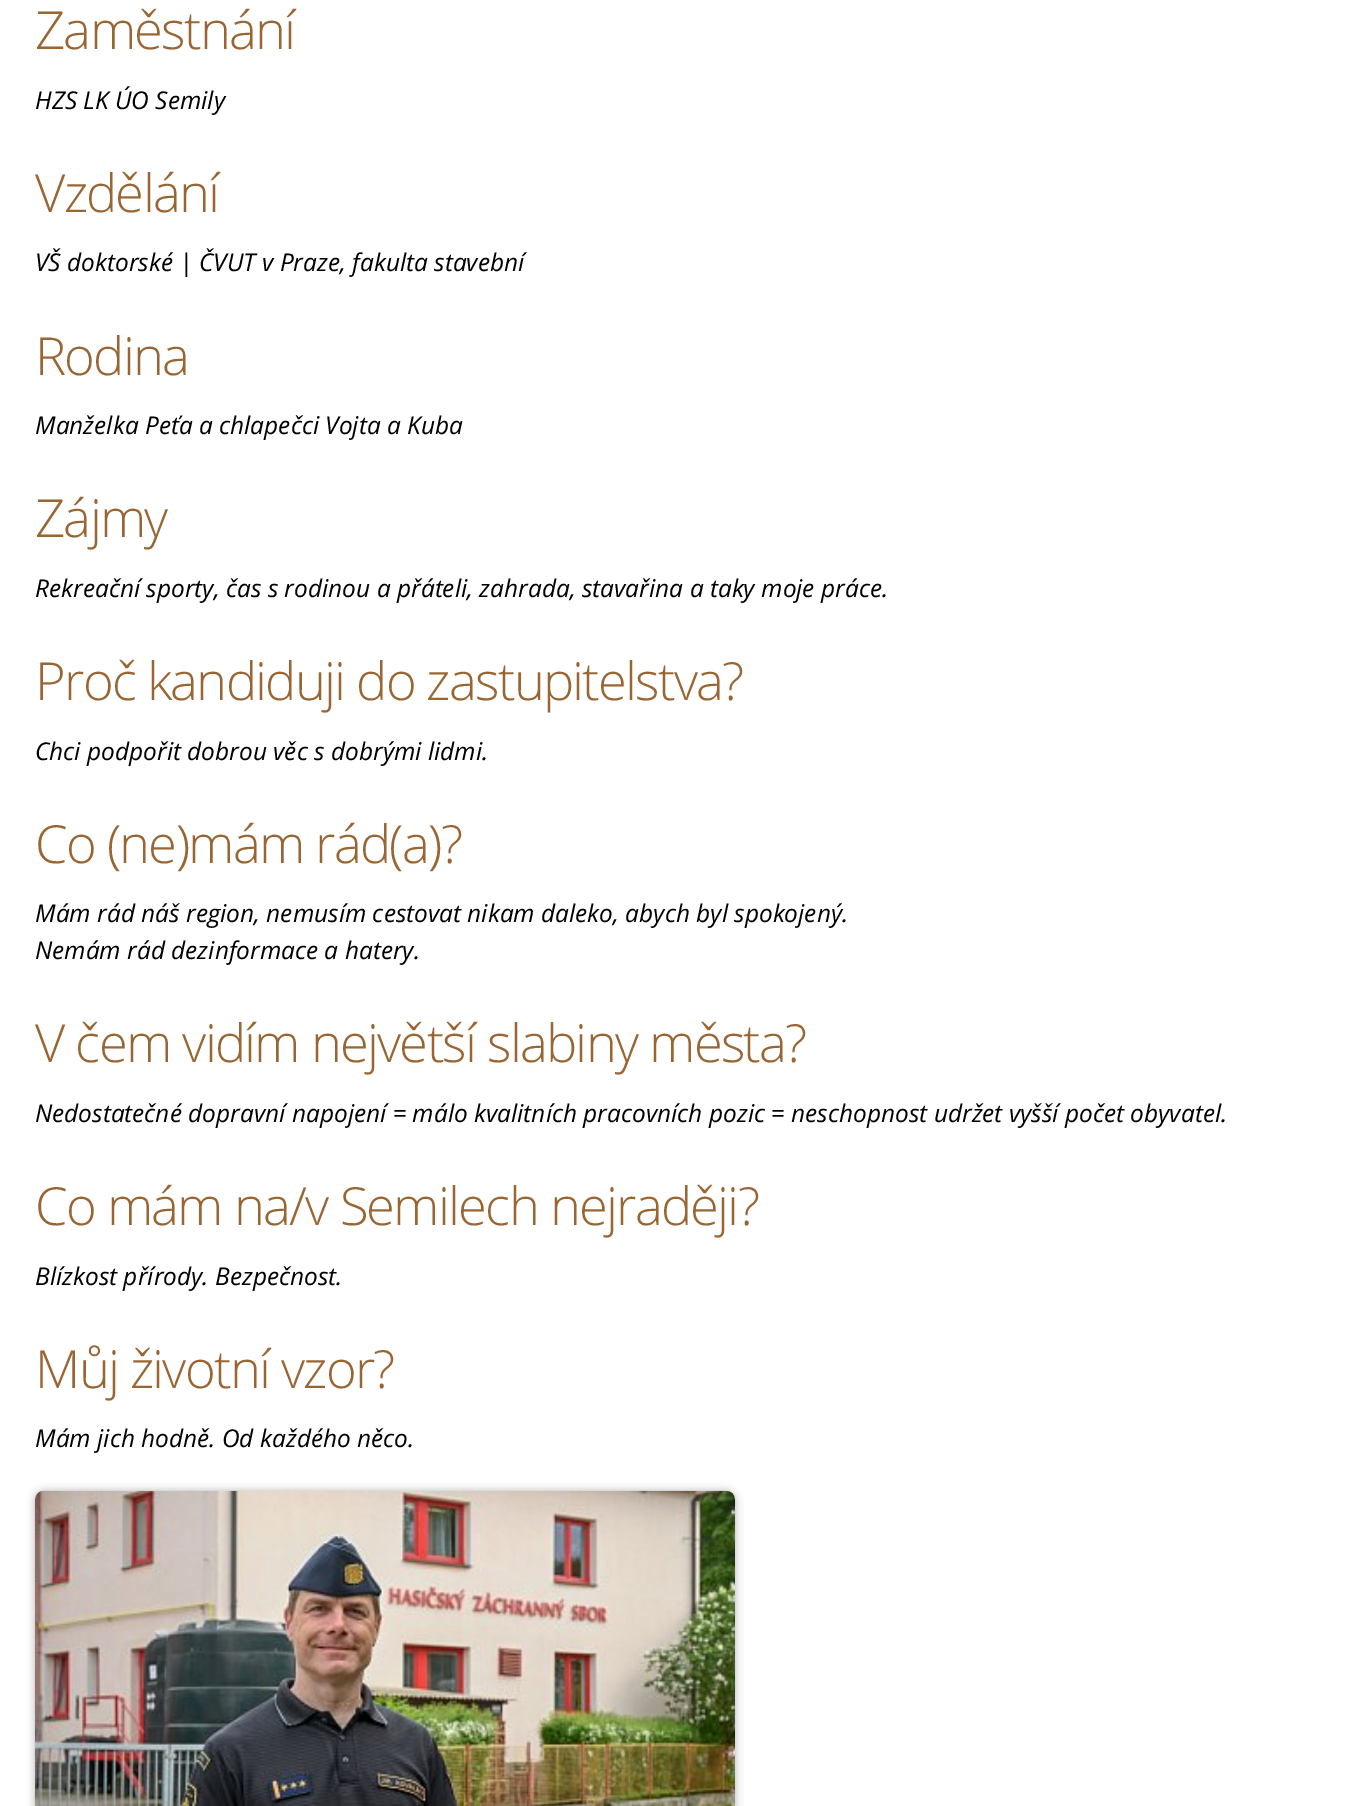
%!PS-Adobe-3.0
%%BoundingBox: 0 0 1361 1806
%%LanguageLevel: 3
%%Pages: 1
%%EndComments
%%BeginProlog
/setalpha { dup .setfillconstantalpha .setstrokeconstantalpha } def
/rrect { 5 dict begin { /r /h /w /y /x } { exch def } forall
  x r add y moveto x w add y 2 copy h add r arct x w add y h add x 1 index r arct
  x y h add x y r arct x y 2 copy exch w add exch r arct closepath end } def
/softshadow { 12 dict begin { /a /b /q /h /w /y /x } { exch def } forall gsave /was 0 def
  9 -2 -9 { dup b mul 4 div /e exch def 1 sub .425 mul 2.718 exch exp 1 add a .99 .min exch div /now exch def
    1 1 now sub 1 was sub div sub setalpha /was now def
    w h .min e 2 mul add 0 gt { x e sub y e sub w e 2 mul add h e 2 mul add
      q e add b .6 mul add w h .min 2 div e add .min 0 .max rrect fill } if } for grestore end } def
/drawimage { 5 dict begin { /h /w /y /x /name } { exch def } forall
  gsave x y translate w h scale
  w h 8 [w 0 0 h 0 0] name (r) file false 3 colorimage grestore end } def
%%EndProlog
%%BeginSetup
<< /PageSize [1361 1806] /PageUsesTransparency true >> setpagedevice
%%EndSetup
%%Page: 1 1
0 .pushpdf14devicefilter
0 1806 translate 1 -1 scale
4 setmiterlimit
1 setgray
0 0 1361 1806 rectfill
0 setgray
35 1491 700 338 9 4.5 0.3 softshadow
(images/1.raw) 35 1490 700 316 drawimage
/OpenSans-Light [52.5 0 0 -52.5 0 0] selectfont
0.6 0.4 0.2 setrgbcolor
35 49 moveto -1.75 0 (Zaměstnání) ashow
/OpenSans-Italic [24.5 0 0 -24.5 0 0] selectfont
0 setgray
35 109 moveto (HZS LK ÚO Semily) show
/OpenSans-Light [52.5 0 0 -52.5 0 0] selectfont
0.6 0.4 0.2 setrgbcolor
35 212 moveto -1.75 0 (Vzdělání) ashow
/OpenSans-Italic [24.5 0 0 -24.5 0 0] selectfont
0 setgray
35 271 moveto (VŠ doktorské | ČVUT v Praze, fakulta stavební) show
/OpenSans-Light [52.5 0 0 -52.5 0 0] selectfont
0.6 0.4 0.2 setrgbcolor
35 375 moveto -1.75 0 (Rodina) ashow
/OpenSans-Italic [24.5 0 0 -24.5 0 0] selectfont
0 setgray
35 434 moveto (Manželka Peťa a chlapečci Vojta a Kuba) show
/OpenSans-Light [52.5 0 0 -52.5 0 0] selectfont
0.6 0.4 0.2 setrgbcolor
35 537 moveto -1.75 0 (Zájmy) ashow
/OpenSans-Italic [24.5 0 0 -24.5 0 0] selectfont
0 setgray
35 597 moveto (Rekreační sporty, čas s rodinou a přáteli, zahrada, stavařina a taky moje práce.) show
/OpenSans-Light [52.5 0 0 -52.5 0 0] selectfont
0.6 0.4 0.2 setrgbcolor
35 700 moveto -1.75 0 (Proč kandiduji do zastupitelstva?) ashow
/OpenSans-Italic [24.5 0 0 -24.5 0 0] selectfont
0 setgray
35 760 moveto (Chci podpořit dobrou věc s dobrými lidmi.) show
/OpenSans-Light [52.5 0 0 -52.5 0 0] selectfont
0.6 0.4 0.2 setrgbcolor
35 863 moveto -1.75 0 (Co \(ne\)mám rád\(a\)?) ashow
/OpenSans-Italic [24.5 0 0 -24.5 0 0] selectfont
0 setgray
35 922 moveto (Mám rád náš region, nemusím cestovat nikam daleko, abych byl spokojený.) show
35 959 moveto (Nemám rád dezinformace a hatery.) show
/OpenSans-Light [52.5 0 0 -52.5 0 0] selectfont
0.6 0.4 0.2 setrgbcolor
35 1062 moveto -1.75 0 (V čem vidím největší slabiny města?) ashow
/OpenSans-Italic [24.5 0 0 -24.5 0 0] selectfont
0 setgray
35 1122 moveto (Nedostatečné dopravní napojení = málo kvalitních pracovních pozic = neschopnost udržet vyšší počet obyvatel.) show
/OpenSans-Light [52.5 0 0 -52.5 0 0] selectfont
0.6 0.4 0.2 setrgbcolor
35 1225 moveto -1.75 0 (Co mám na/v Semilech nejraději?) ashow
/OpenSans-Italic [24.5 0 0 -24.5 0 0] selectfont
0 setgray
35 1285 moveto (Blízkost přírody. Bezpečnost.) show
/OpenSans-Light [52.5 0 0 -52.5 0 0] selectfont
0.6 0.4 0.2 setrgbcolor
35 1388 moveto -1.75 0 (Můj životní vzor?) ashow
/OpenSans-Italic [24.5 0 0 -24.5 0 0] selectfont
0 setgray
35 1447 moveto (Mám jich hodně. Od každého něco.) show
.poppdf14devicefilter showpage
%%EOF
